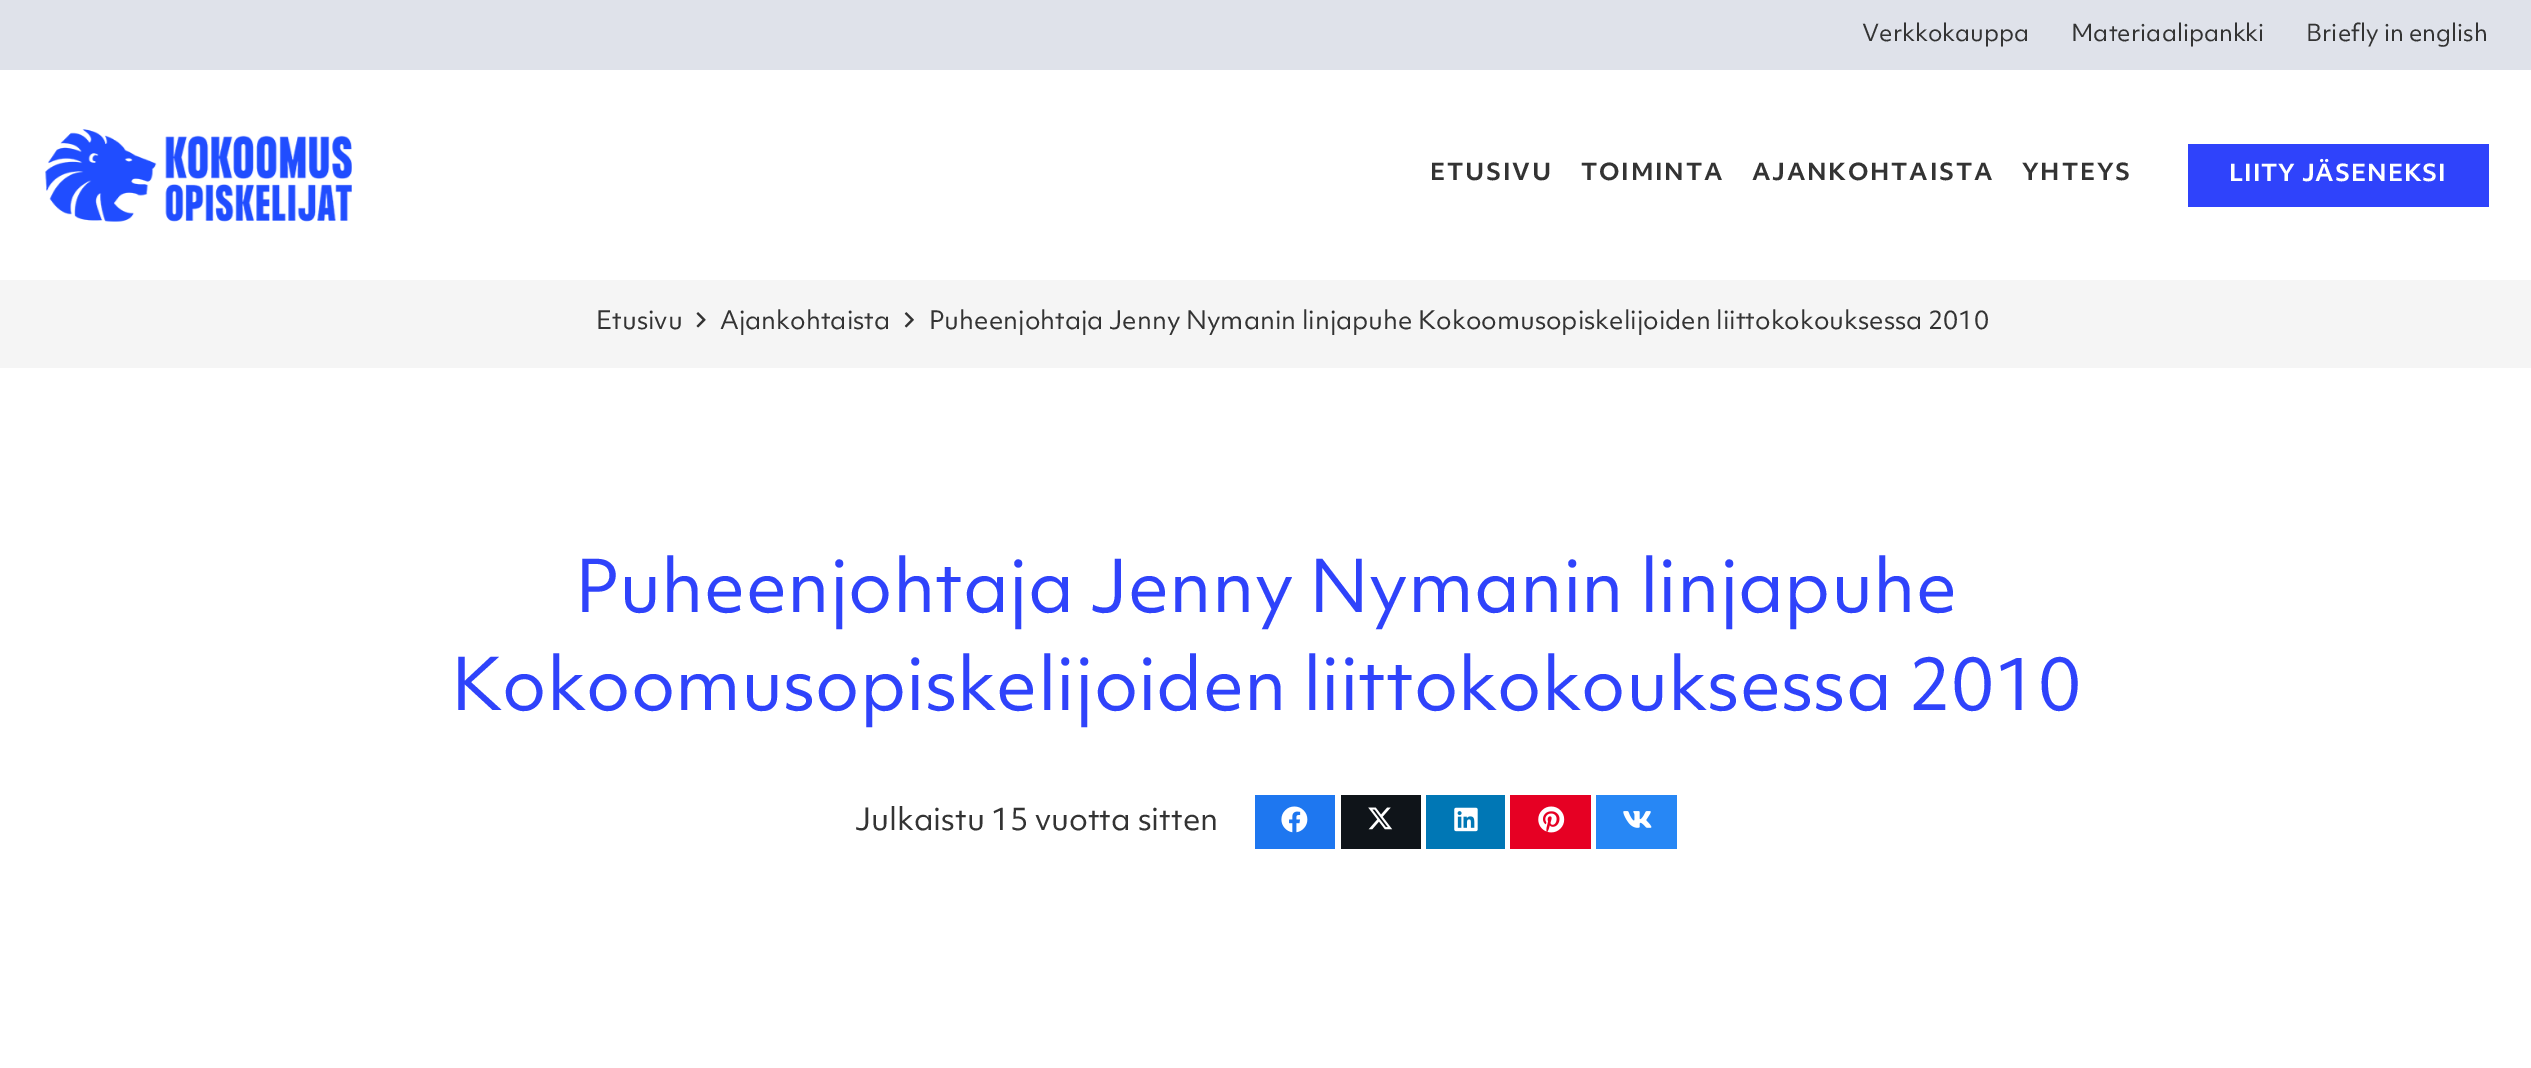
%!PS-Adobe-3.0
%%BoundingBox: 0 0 2531 1068
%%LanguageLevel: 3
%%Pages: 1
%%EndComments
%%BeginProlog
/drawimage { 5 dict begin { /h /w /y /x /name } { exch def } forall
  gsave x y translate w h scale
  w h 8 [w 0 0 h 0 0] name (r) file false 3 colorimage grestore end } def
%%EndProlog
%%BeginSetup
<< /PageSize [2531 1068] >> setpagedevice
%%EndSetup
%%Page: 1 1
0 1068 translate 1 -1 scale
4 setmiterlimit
1 setgray
0 0 2531 1068 rectfill
0.875 0.886 0.918 setrgbcolor
0 0 2531 70 rectfill
(images/1.raw) 45 129 307 93 drawimage
0.184 0.263 0.984 setrgbcolor
2188 144 301 63 rectfill
0.961 setgray
0 280 2531 88 rectfill
(images/2.raw) 696 312 10 16 drawimage
(images/3.raw) 904 312 10 16 drawimage
0.118 0.467 0.941 setrgbcolor
1255 795 80 54 rectfill
(images/4.raw) 1281 806 27 27 drawimage
0.059 0.078 0.098 setrgbcolor
1341 795 80 54 rectfill
(images/5.raw) 1368 807 25 23 drawimage
0 0.467 0.71 setrgbcolor
1426 795 79 54 rectfill
(images/6.raw) 1454 807 24 25 drawimage
0.902 0 0.137 setrgbcolor
1510 795 81 54 rectfill
(images/7.raw) 1538 806 27 27 drawimage
0.153 0.529 0.961 setrgbcolor
1596 795 81 54 rectfill
(images/8.raw) 1623 811 29 17 drawimage
/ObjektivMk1-Regular [22.75 0 0 -22.75 0 0] selectfont
0.2 setgray
1862 41 moveto (Verkkokauppa) show
2071 41 moveto (Materiaalipankki) show
2306 41 moveto (Briefly in english) show
/ObjektivMk1-Bold [22.75 0 0 -22.75 0 0] selectfont
1430 180 moveto 1.75 0 (ETUSIVU) ashow
1581 180 moveto 1.75 0 (TOIMINTA) ashow
1752 180 moveto 1.75 0 (AJANKOHTAISTA) ashow
2022 180 moveto 1.75 0 (YHTEYS) ashow
1 setgray
2229 181 moveto 0.9 0 (LIITY JÄSENEKSI) ashow
/ObjektivMk1-Regular [24.5 0 0 -24.5 0 0] selectfont
0.2 setgray
596 329 moveto (Etusivu) show
720 329 moveto (Ajankohtaista) show
929 329 moveto (Puheenjohtaja Jenny Nymanin linjapuhe Kokoomusopiskelijoiden liittokokouksessa 2010) show
/ObjektivMk1-Regular [70 0 0 -70 0 0] selectfont
0.184 0.263 0.984 setrgbcolor
575 612 moveto (Puheenjohtaja Jenny Nymanin linjapuhe) show
451 710 moveto (Kokoomusopiskelijoiden liittokokouksessa 2010) show
/ObjektivMk1-Regular [29.75 0 0 -29.75 0 0] selectfont
0.2 setgray
855 830 moveto (Julkaistu 15 vuotta sitten) show
showpage
%%EOF
